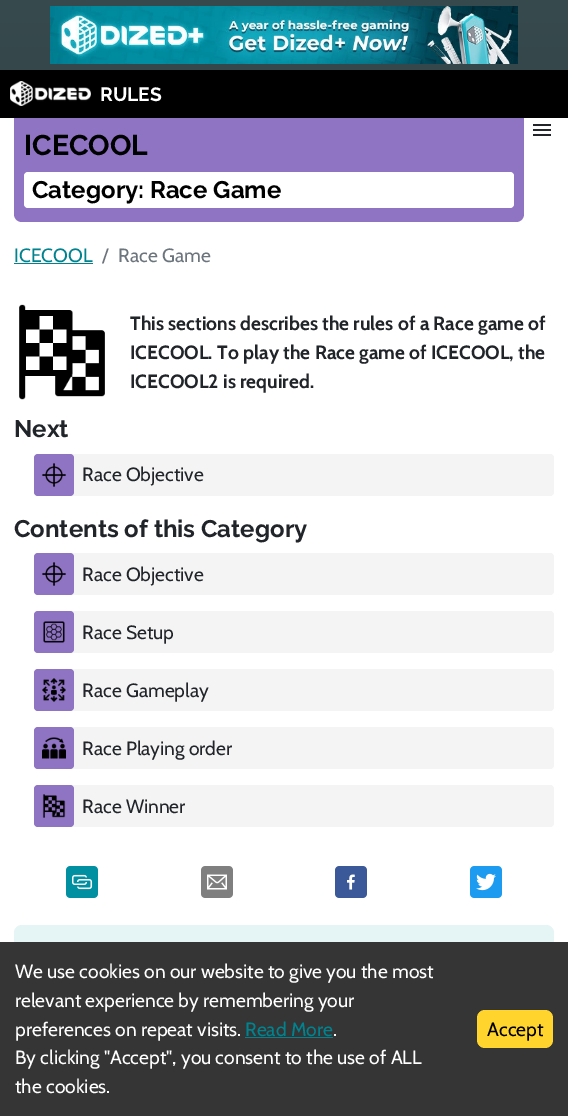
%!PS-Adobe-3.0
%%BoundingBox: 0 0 568 1116
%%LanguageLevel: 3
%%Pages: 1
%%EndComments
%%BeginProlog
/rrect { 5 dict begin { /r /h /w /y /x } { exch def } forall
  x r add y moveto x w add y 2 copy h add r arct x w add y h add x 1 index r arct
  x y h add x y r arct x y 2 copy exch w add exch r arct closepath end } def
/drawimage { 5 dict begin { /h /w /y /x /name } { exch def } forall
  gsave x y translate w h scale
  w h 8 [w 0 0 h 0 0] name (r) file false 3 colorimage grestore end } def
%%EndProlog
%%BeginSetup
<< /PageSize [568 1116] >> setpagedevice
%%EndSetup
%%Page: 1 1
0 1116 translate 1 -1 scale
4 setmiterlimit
1 setgray
0 0 568 1116 rectfill
gsave newpath 0 0 moveto 568 0 lineto 568 70 lineto 0 70 lineto closepath clip newpath
<< /ShadingType 2 /ColorSpace /DeviceRGB /Coords [284 0 284 1116] /Extend [true true] /Function << /FunctionType 3 /Domain [0 1] /Functions [<< /FunctionType 2 /Domain [0 1] /C0 [0.216 0.29 0.306] /C1 [0.188 0.251 0.259] /N 1 >> << /FunctionType 2 /Domain [0 1] /C0 [0.188 0.251 0.259] /C1 [0.059 0.082 0.082] /N 1 >> << /FunctionType 2 /Domain [0 1] /C0 [0.059 0.082 0.082] /C1 [0.059 0.082 0.082] /N 1 >>] /Bounds [0.2 0.6] /Encode [0 1 0 1 0 1] >> >> shfill grestore
(images/1.raw) 50 6 468 58 drawimage
0 setgray
0 70 568 48 rectfill
(images/2.raw) 10 81 81 25 drawimage
(images/3.raw) 533 124 18 12 drawimage
0.565 0.455 0.769 setrgbcolor
newpath 14 118 moveto 524 118 lineto 524 214 lineto 524 218.5 520.5 222 516 222 curveto 22 222 lineto 17.5 222 14 218.5 14 214 curveto closepath fill
1 setgray
24 172 490 36 4 rrect fill
0 0.514 0.561 setrgbcolor
14 263 79 1 rectfill
(images/4.raw) 19 304 86 96 drawimage
0.957 setgray
34 454 520 42 4 rrect fill
0.565 0.455 0.769 setrgbcolor
34 454 40 42 4 rrect fill
(images/5.raw) 42 463 24 24 drawimage
0.957 setgray
34 553 520 42 4 rrect fill
0.565 0.455 0.769 setrgbcolor
34 553 40 42 4 rrect fill
(images/5.raw) 42 562 24 24 drawimage
0.957 setgray
34 611 520 42 4 rrect fill
0.565 0.455 0.769 setrgbcolor
34 611 40 42 4 rrect fill
(images/6.raw) 43 621 22 22 drawimage
0.957 setgray
34 669 520 42 4 rrect fill
0.565 0.455 0.769 setrgbcolor
34 669 40 42 4 rrect fill
(images/7.raw) 42 678 24 24 drawimage
0.957 setgray
34 727 520 42 4 rrect fill
0.565 0.455 0.769 setrgbcolor
34 727 40 42 4 rrect fill
(images/8.raw) 42 737 24 22 drawimage
0.957 setgray
34 785 520 42 4 rrect fill
0.565 0.455 0.769 setrgbcolor
34 785 40 42 4 rrect fill
(images/9.raw) 42 794 24 24 drawimage
(images/10.raw) 66 866 32 32 drawimage
(images/11.raw) 201 866 32 32 drawimage
(images/12.raw) 335 866 32 32 drawimage
(images/13.raw) 470 866 32 32 drawimage
0.898 0.957 0.961 setrgbcolor
14 925 540 38 8 rrect fill
0.208 setgray
0 942 568 174 rectfill
0 0.514 0.561 setrgbcolor
245 1037 88 1 rectfill
1 0.831 0.176 setrgbcolor
477 1010 76 38 8 rrect fill
/Raleway-Bold [19.2 0 0 -19.2 0 0] selectfont
1 setgray
100 101 moveto (RULES) show
/Raleway-Bold [28.5 0 0 -28.5 0 0] selectfont
0 setgray
24 155 moveto (ICECOOL) show
/Raleway-Bold [24 0 0 -24 0 0] selectfont
32 198 moveto (Category: Race Game) show
/Cabin-Regular [19.2 0 0 -19.2 0 0] selectfont
0 0.514 0.561 setrgbcolor
14 262 moveto (ICECOOL) show
0.424 0.459 0.49 setrgbcolor
102 262 moveto (/) show
118 262 moveto (Race Game) show
/Cabin-Bold [19.2 0 0 -19.2 0 0] selectfont
0.129 0.145 0.161 setrgbcolor
130 330 moveto (This sections describes the rules of a Race game of) show
130 359 moveto (ICECOOL. To play the Race game of ICECOOL, the) show
130 388 moveto (ICECOOL2 is required.) show
/Raleway-Bold [24 0 0 -24 0 0] selectfont
14 437 moveto (Next) show
/Cabin-Regular [19.2 0 0 -19.2 0 0] selectfont
82 481 moveto (Race Objective) show
/Raleway-Bold [24 0 0 -24 0 0] selectfont
14 537 moveto (Contents of this Category) show
/Cabin-Regular [19.2 0 0 -19.2 0 0] selectfont
82 581 moveto (Race Objective) show
82 639 moveto (Race Setup) show
82 697 moveto (Race Gameplay) show
82 755 moveto (Race Playing order) show
82 813 moveto (Race Winner) show
1 setgray
15 978 moveto (We use cookies on our website to give you the most) show
15 1007 moveto (relevant experience by remembering your) show
15 1036 moveto (preferences on repeat visits.) show
0 0.514 0.561 setrgbcolor
245 1036 moveto (Read More) show
1 setgray
333 1036 moveto (.) show
15 1064 moveto (By clicking "Accept", you consent to the use of ALL) show
15 1093 moveto (the cookies.) show
0 setgray
487 1036 moveto (Accept) show
showpage
%%EOF
